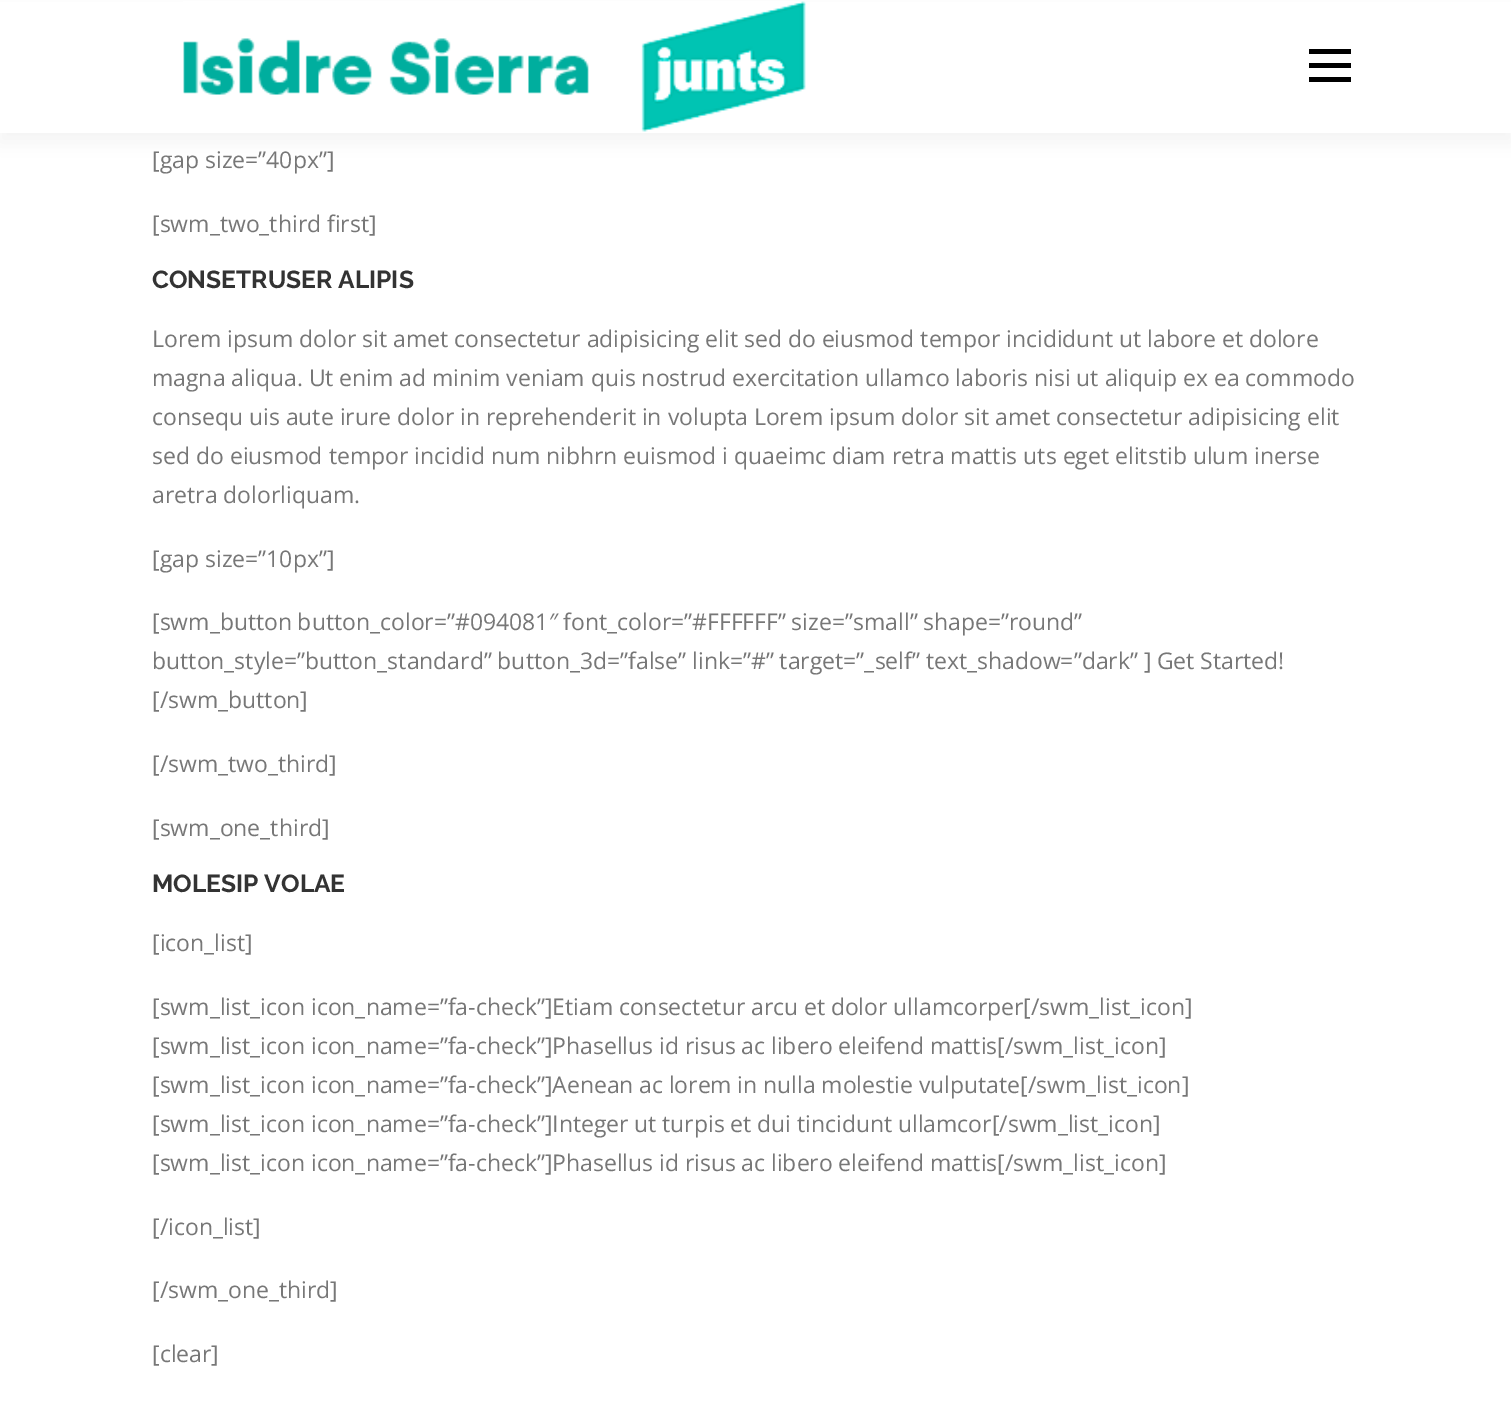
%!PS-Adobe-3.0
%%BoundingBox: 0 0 1511 1421
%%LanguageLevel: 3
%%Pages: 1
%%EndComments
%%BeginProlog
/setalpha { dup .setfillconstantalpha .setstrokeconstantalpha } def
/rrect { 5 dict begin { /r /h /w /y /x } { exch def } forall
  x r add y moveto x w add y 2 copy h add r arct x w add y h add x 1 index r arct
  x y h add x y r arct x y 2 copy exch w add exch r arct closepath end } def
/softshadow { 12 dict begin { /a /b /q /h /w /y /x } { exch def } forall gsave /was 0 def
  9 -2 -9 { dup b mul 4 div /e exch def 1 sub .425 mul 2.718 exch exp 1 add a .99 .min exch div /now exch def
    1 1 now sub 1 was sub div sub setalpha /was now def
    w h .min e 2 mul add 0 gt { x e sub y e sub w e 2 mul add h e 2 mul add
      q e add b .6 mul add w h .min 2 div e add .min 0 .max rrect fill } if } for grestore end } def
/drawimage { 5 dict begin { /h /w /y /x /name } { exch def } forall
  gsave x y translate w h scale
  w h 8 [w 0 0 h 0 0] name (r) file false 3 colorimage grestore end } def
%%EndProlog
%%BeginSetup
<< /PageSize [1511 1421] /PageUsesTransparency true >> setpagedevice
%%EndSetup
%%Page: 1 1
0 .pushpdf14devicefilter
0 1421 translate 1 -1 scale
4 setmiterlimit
1 setgray
0 0 1511 1421 rectfill
0.196 setgray
0 9 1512 133 0 9 0.06 softshadow
1 setgray
0 2 1511 131 rectfill
(images/1.raw) 183 1 623 131 drawimage
0 setgray
1309 63 42 5 rectfill
1309 49 42 5 rectfill
1309 77 42 5 rectfill
/OpenSans-Regular [22.97 0 0 -22.97 0 0] selectfont
0.467 setgray
152 168 moveto ([gap size=”40px”]) show
152 232 moveto ([swm_two_third first]) show
/Raleway-Bold [24.6 0 0 -24.6 0 0] selectfont
0.2 setgray
152 288 moveto (CONSETRUSER ALIPIS) show
/OpenSans-Regular [22.97 0 0 -22.97 0 0] selectfont
0.467 setgray
152 347 moveto (Lorem ipsum dolor sit amet consectetur adipisicing elit sed do eiusmod tempor incididunt ut labore et dolore) show
152 386 moveto (magna aliqua. Ut enim ad minim veniam quis nostrud exercitation ullamco laboris nisi ut aliquip ex ea commodo) show
152 425 moveto (consequ uis aute irure dolor in reprehenderit in volupta Lorem ipsum dolor sit amet consectetur adipisicing elit) show
152 464 moveto (sed do eiusmod tempor incidid num nibhrn euismod i quaeimc diam retra mattis uts eget elitstib ulum inerse) show
152 503 moveto (aretra dolorliquam.) show
152 567 moveto ([gap size=”10px”]) show
152 630 moveto -0.5 0 32 ([swm_button button_color=”#094081″ font_color=”#FFFFFF” size=”small” shape=”round”) widthshow
152 669 moveto -0.25 0 32 (button_style=”button_standard” button_3d=”false” link=”#” target=”_self” text_shadow=”dark” ] Get Started!) widthshow
152 708 moveto ([/swm_button]) show
152 772 moveto ([/swm_two_third]) show
152 836 moveto ([swm_one_third]) show
/Raleway-Bold [24.6 0 0 -24.6 0 0] selectfont
0.2 setgray
152 892 moveto (MOLESIP VOLAE) show
/OpenSans-Regular [22.97 0 0 -22.97 0 0] selectfont
0.467 setgray
152 951 moveto ([icon_list]) show
152 1015 moveto -0.25 0 32 ([swm_list_icon icon_name=”fa-check”]Etiam consectetur arcu et dolor ullamcorper[/swm_list_icon]) widthshow
152 1054 moveto -0.25 0 32 ([swm_list_icon icon_name=”fa-check”]Phasellus id risus ac libero eleifend mattis[/swm_list_icon]) widthshow
152 1093 moveto -0.25 0 32 ([swm_list_icon icon_name=”fa-check”]Aenean ac lorem in nulla molestie vulputate[/swm_list_icon]) widthshow
152 1132 moveto -0.25 0 32 ([swm_list_icon icon_name=”fa-check”]Integer ut turpis et dui tincidunt ullamcor[/swm_list_icon]) widthshow
152 1171 moveto -0.25 0 32 ([swm_list_icon icon_name=”fa-check”]Phasellus id risus ac libero eleifend mattis[/swm_list_icon]) widthshow
152 1235 moveto ([/icon_list]) show
152 1298 moveto ([/swm_one_third]) show
152 1362 moveto ([clear]) show
.poppdf14devicefilter showpage
%%EOF
